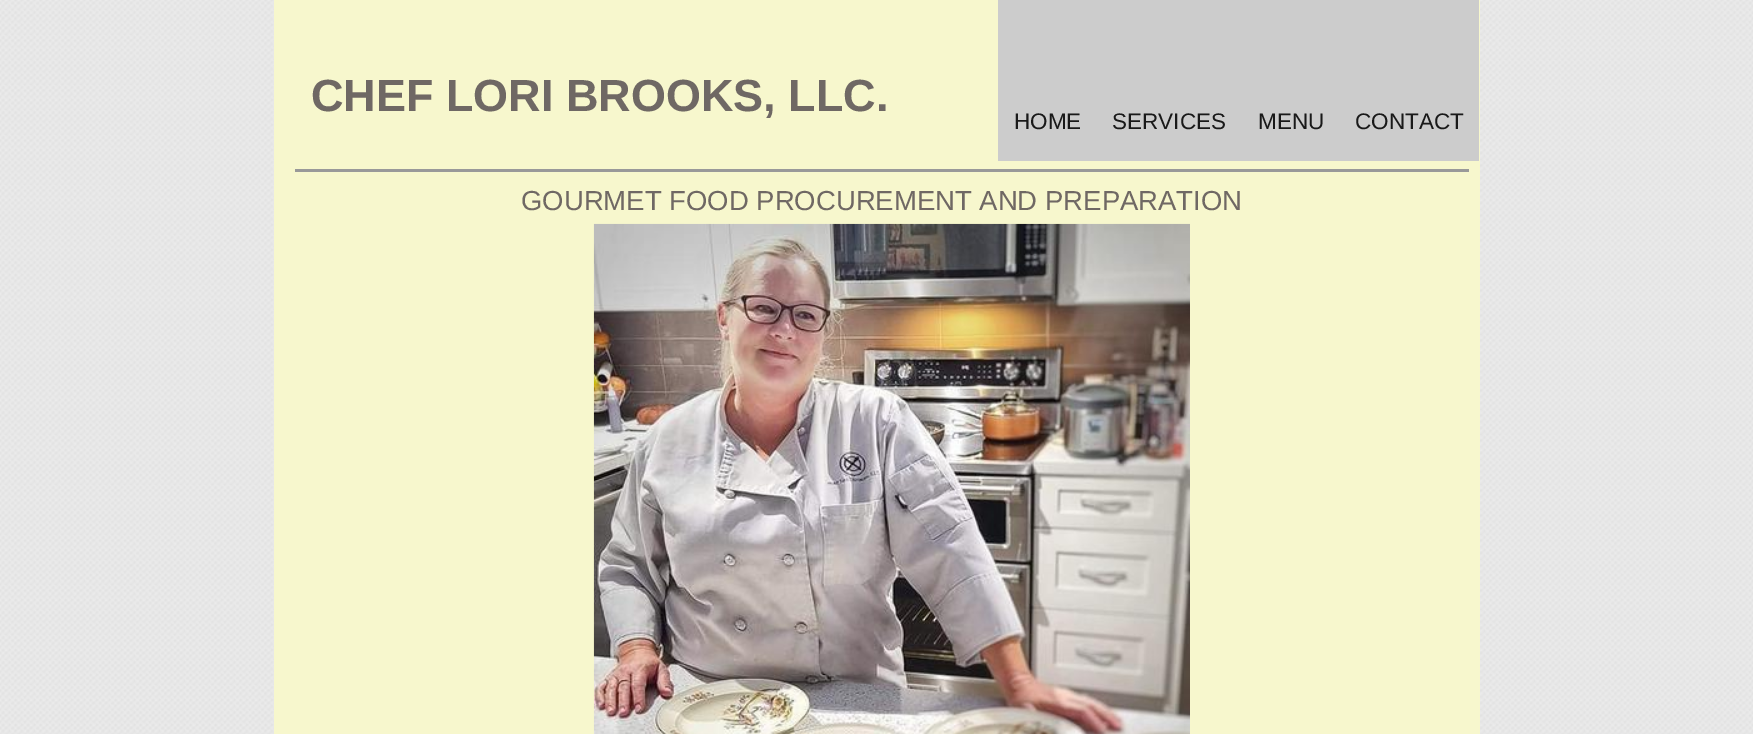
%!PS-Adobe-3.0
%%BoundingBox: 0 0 1753 734
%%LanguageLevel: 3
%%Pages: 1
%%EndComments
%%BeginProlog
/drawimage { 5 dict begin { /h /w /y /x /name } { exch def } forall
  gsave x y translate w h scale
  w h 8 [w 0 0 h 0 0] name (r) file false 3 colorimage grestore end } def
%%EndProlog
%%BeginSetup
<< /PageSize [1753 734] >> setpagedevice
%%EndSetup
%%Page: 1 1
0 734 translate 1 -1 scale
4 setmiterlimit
1 setgray
0 0 1753 734 rectfill
(images/1.raw) 0 0 1753 734 drawimage
0.969 0.969 0.804 setrgbcolor
274 0 1206 734 rectfill
0.8 setgray
998 0 481 161 rectfill
0.6 setgray
295 169 1174 3 rectfill
(images/2.raw) 593 223 597 511 drawimage
/LiberationSans-Bold [45 0 0 -45 0 0] selectfont
0.435 0.408 0.392 setrgbcolor
311 111 moveto (CHEF LORI BROOKS, LLC.) show
/LiberationSans-Regular [22.5 0 0 -22.5 0 0] selectfont
0.098 setgray
1014 129 moveto (HOME) show
1112 129 moveto (SERVICES) show
1258 129 moveto (MENU) show
1355 129 moveto (CONTACT) show
/LiberationSans-Regular [27.5 0 0 -27.5 0 0] selectfont
0.435 0.408 0.392 setrgbcolor
521 210 moveto (GOURMET FOOD PROCUREMENT AND PREPARATION) show
showpage
%%EOF
